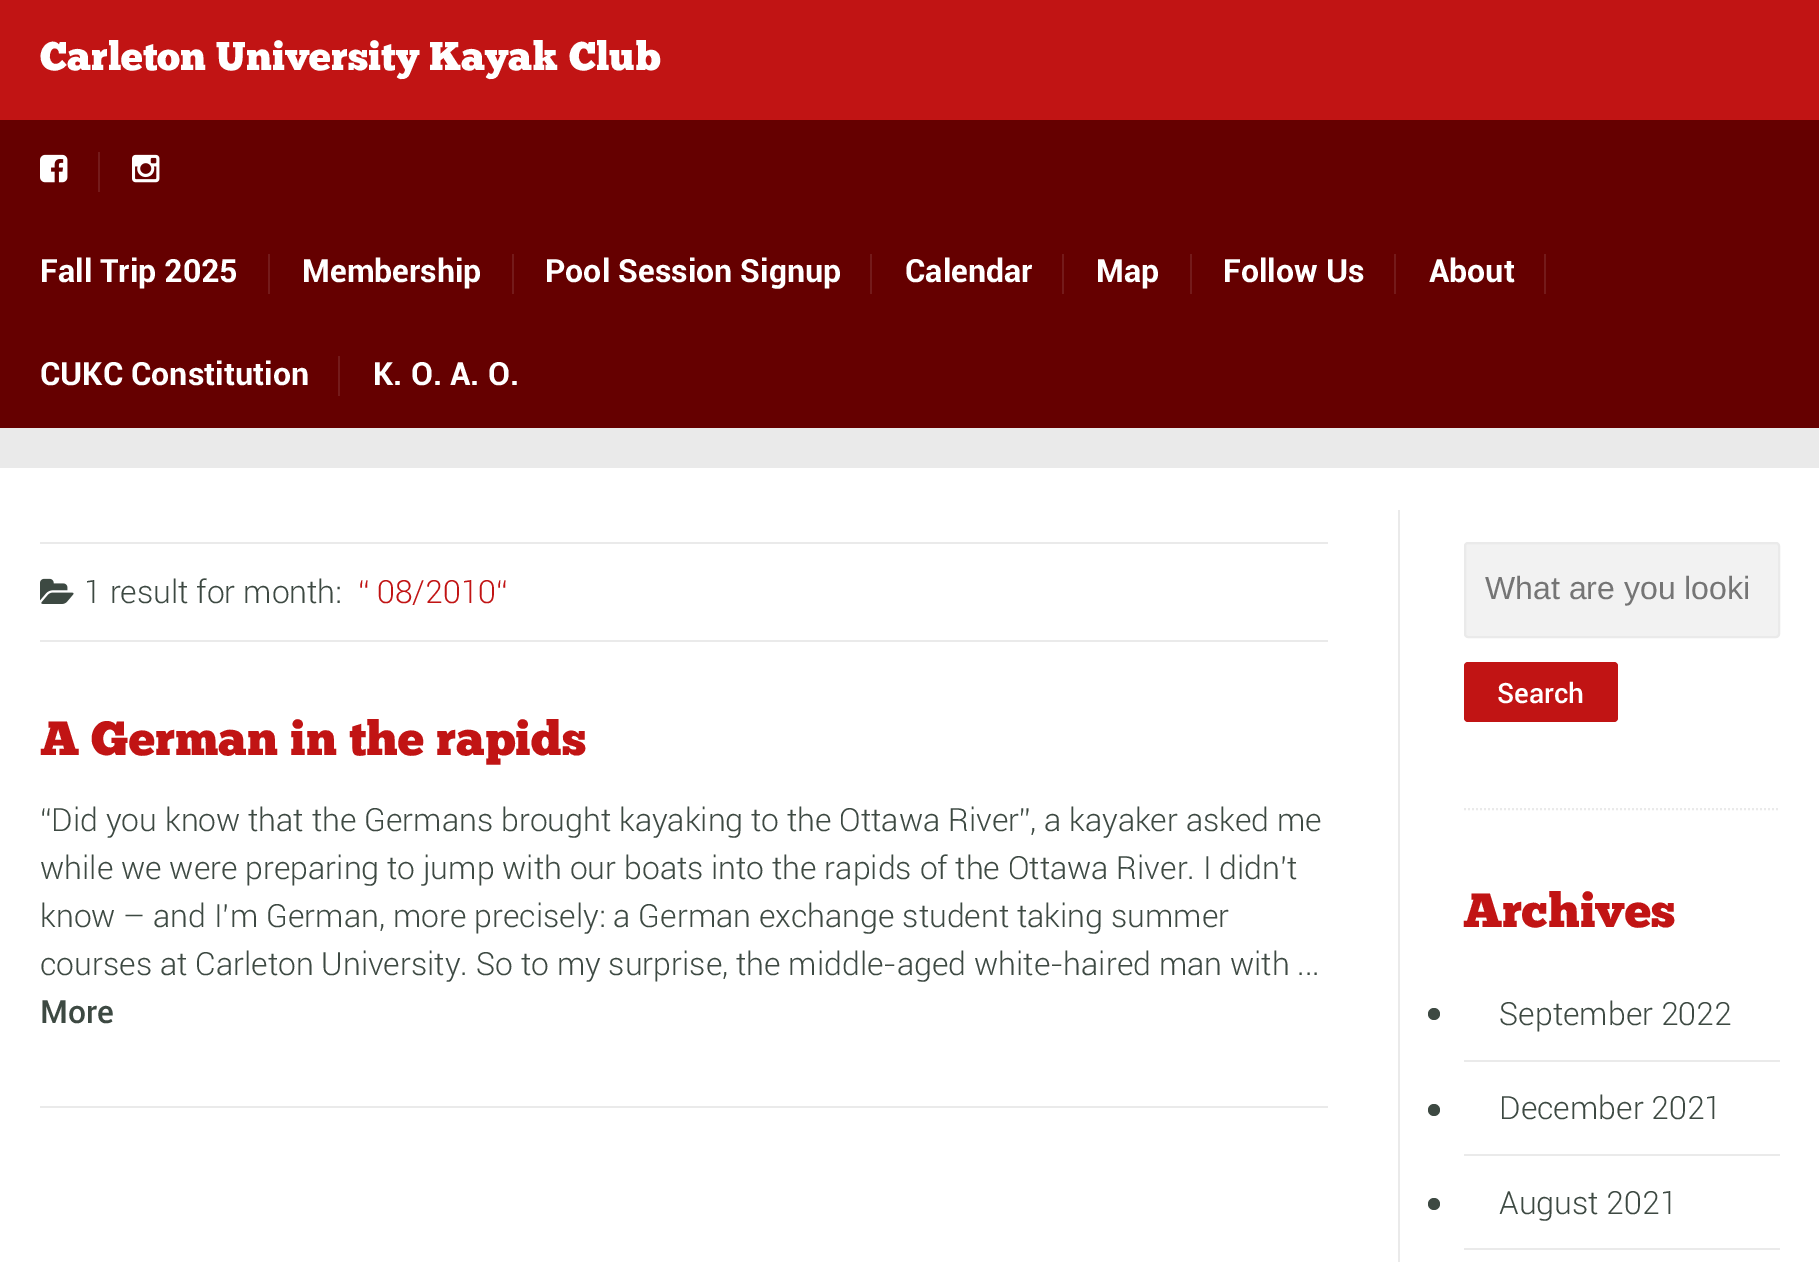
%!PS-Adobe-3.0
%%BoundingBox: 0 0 1819 1262
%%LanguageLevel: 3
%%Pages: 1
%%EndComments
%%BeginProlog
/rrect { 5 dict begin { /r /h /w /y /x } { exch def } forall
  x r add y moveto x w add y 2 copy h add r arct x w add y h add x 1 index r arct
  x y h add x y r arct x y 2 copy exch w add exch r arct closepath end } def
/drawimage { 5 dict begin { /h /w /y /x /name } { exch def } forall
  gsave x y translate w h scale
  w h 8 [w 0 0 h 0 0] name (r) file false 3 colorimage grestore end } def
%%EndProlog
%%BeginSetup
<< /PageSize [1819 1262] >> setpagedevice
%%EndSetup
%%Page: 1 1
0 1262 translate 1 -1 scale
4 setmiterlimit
1 setgray
0 0 1819 1262 rectfill
0.757 0.078 0.078 setrgbcolor
0 0 1819 120 rectfill
0.396 0 0 setrgbcolor
0 120 1819 308 rectfill
(images/1.raw) 40 154 28 29 drawimage
0.455 0.102 0.102 setrgbcolor
98 152 2 40 rectfill
(images/2.raw) 132 154 28 29 drawimage
268 254 2 40 rectfill
512 254 2 40 rectfill
870 254 2 40 rectfill
1062 254 2 40 rectfill
1190 254 2 40 rectfill
1394 254 2 40 rectfill
1544 254 2 40 rectfill
338 356 2 40 rectfill
0.918 setgray
0 428 1819 40 rectfill
40 542 1288 2 rectfill
40 640 1288 2 rectfill
(images/3.raw) 40 578 34 26 drawimage
40 1106 1288 2 rectfill
1398 510 2 752 rectfill
0.949 setgray
1465 543 314 94 3 rrect gsave fill grestore
0.918 setgray
2 setlinewidth
stroke
0.757 0.078 0.078 setrgbcolor
1464 662 154 60 4 rrect fill
0.918 setgray
[2 2] 0 setdash
newpath 1464 809 moveto 1780 809 lineto stroke
1464 1060 316 2 rectfill
0.239 0.286 0.259 setrgbcolor
newpath 1434 1014 6 0 360 arc closepath fill
0.918 setgray
1464 1154 316 2 rectfill
0.239 0.286 0.259 setrgbcolor
newpath 1434 1110 6 0 360 arc closepath fill
0.918 setgray
1464 1248 316 2 rectfill
0.239 0.286 0.259 setrgbcolor
newpath 1434 1204 6 0 360 arc closepath fill
/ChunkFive-Regular [40 0 0 -40 0 0] selectfont
1 setgray
40 70 moveto (Carleton University Kayak Club) show
/Roboto-Bold [32 0 0 -32 0 0] selectfont
40 282 moveto (Fall Trip 2025) show
302 282 moveto (Membership) show
545 282 moveto (Pool Session Signup) show
905 282 moveto (Calendar) show
1096 282 moveto (Map) show
1223 282 moveto (Follow Us) show
1429 282 moveto (About) show
40 385 moveto (CUKC Constitution) show
373 385 moveto (K. O. A. O.) show
/Roboto-Light [32 0 0 -32 0 0] selectfont
0.239 0.286 0.259 setrgbcolor
84 603 moveto (1 result for month:) show
0.757 0.078 0.078 setrgbcolor
358 603 moveto (“) show
377 603 moveto (08/2010“) show
/ChunkFive-Regular [48 0 0 -48 0 0] selectfont
40 755 moveto (A German in the rapids) show
/Roboto-Light [32 0 0 -32 0 0] selectfont
0.239 0.286 0.259 setrgbcolor
40 831 moveto (“Did you know that the Germans brought kayaking to the Ottawa River”, a kayaker asked me) show
40 879 moveto (while we were preparing to jump with our boats into the rapids of the Ottawa River. I didn’t) show
40 927 moveto (know – and I’m German, more precisely: a German exchange student taking summer) show
40 975 moveto (courses at Carleton University. So to my surprise, the middle-aged white-haired man with ...) show
/Roboto-Medium [32 0 0 -32 0 0] selectfont
40 1023 moveto (More) show
/LiberationSans-Regular [32 0 0 -32 0 0] selectfont
0.459 setgray
1485 599 moveto (What are you looki) show
/Roboto-Medium [28 0 0 -28 0 0] selectfont
1 setgray
1497 703 moveto (Search) show
/ChunkFive-Regular [48 0 0 -48 0 0] selectfont
0.757 0.078 0.078 setrgbcolor
1463 927 moveto (Archives) show
/Roboto-Light [32 0 0 -32 0 0] selectfont
0.239 0.286 0.259 setrgbcolor
1499 1025 moveto (September 2022) show
1499 1119 moveto (December 2021) show
1499 1214 moveto (August 2021) show
showpage
%%EOF
